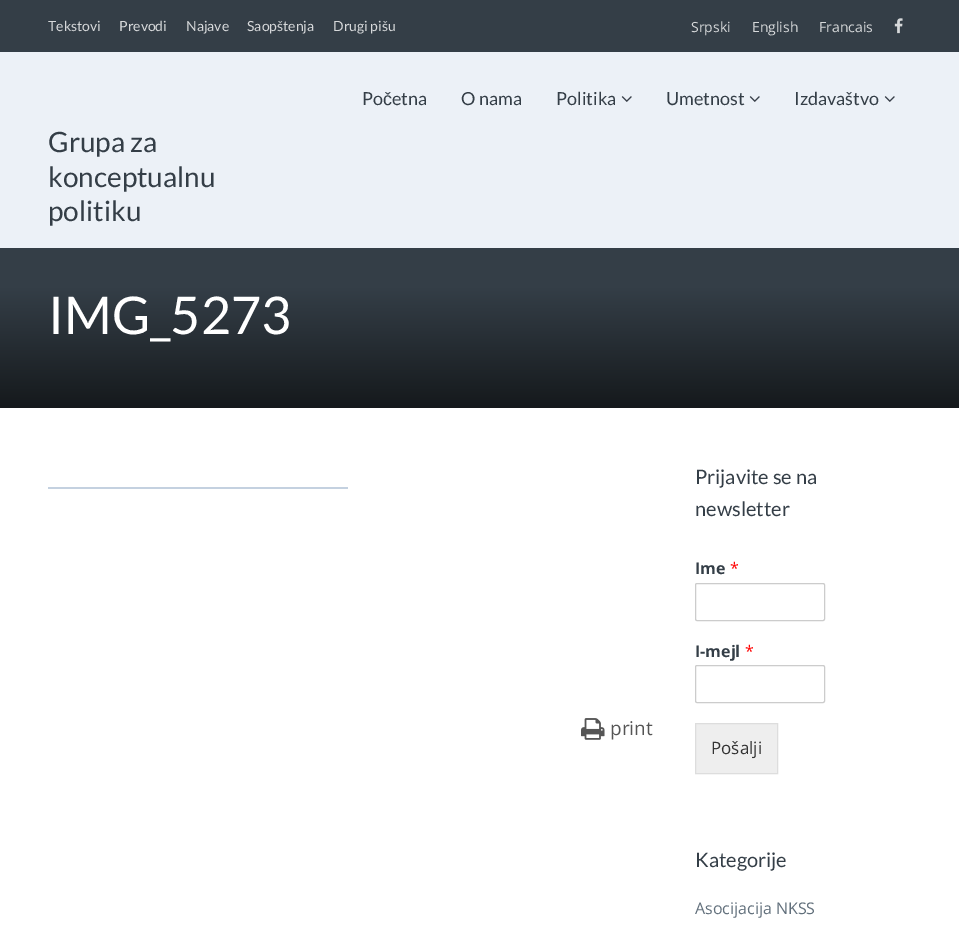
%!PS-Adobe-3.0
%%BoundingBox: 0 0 959 925
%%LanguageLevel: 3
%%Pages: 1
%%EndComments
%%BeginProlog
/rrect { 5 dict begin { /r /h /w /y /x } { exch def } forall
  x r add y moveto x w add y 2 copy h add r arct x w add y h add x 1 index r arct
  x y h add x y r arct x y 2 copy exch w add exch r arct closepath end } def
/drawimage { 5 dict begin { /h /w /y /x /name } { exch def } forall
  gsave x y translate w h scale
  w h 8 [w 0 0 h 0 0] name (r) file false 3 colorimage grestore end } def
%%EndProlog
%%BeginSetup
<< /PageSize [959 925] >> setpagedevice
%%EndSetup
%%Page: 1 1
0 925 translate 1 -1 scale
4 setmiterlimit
1 setgray
0 0 959 925 rectfill
0.204 0.243 0.278 setrgbcolor
0 0 959 52 rectfill
(images/1.raw) 894 18 9 16 drawimage
0.925 0.945 0.969 setrgbcolor
0 52 959 196 rectfill
(images/2.raw) 621 96 11 6 drawimage
(images/2.raw) 749 96 11 6 drawimage
(images/2.raw) 884 96 11 6 drawimage
gsave newpath 0 248 moveto 959 248 lineto 959 408 lineto 0 408 lineto closepath clip newpath
<< /ShadingType 2 /ColorSpace /DeviceRGB /Coords [480 248 480 408] /Extend [true true] /Function << /FunctionType 3 /Domain [0 1] /Functions [<< /FunctionType 2 /Domain [0 1] /C0 [0.204 0.243 0.278] /C1 [0.204 0.243 0.278] /N 1 >> << /FunctionType 2 /Domain [0 1] /C0 [0.204 0.243 0.278] /C1 [0.082 0.098 0.11] /N 1 >>] /Bounds [0.25] /Encode [0 1 0 1] >> >> shfill grestore
0.769 0.82 0.878 setrgbcolor
48 487 300 2 rectfill
(images/3.raw) 581 718 24 22 drawimage
0.8 setgray
695.5 583.5 129 37 1.5 rrect stroke
695.5 665.5 129 37 1.5 rrect stroke
0.933 setgray
newpath 695.5 723.5 moveto 777.5 723.5 lineto 777.5 773.5 lineto 695.5 773.5 lineto closepath gsave fill grestore
0.867 setgray
stroke
/Lato-Regular [14 0 0 -14 0 0] selectfont
0.839 0.847 0.855 setrgbcolor
48 31 moveto (Tekstovi) show
119 31 moveto (Prevodi) show
186 31 moveto (Najave) show
247 31 moveto (Saopštenja) show
333 31 moveto (Drugi pišu) show
/OpenSans-Regular [14 0 0 -14 0 0] selectfont
691 32 moveto (Srpski) show
752 32 moveto (English) show
819 32 moveto (Francais) show
/Lato-Regular [18 0 0 -18 0 0] selectfont
0.204 0.243 0.278 setrgbcolor
362 105 moveto (Po) show
/LiberationSans-Regular [18 0 0 -18 0 0] selectfont
383 105 moveto (č) show
/Lato-Regular [18 0 0 -18 0 0] selectfont
392 105 moveto (etna) show
461 105 moveto (O nama) show
556 105 moveto (Politika) show
666 105 moveto (Umetnost) show
794 105 moveto (Izdavaštvo) show
/Lato-Regular [28 0 0 -28 0 0] selectfont
48 152 moveto (Grupa za) show
48 187 moveto (konceptualnu) show
48 221 moveto (politiku) show
/Lato-Regular [52 0 0 -52 0 0] selectfont
1 setgray
48 334 moveto (IMG_5273) show
/OpenSans-Regular [19 0 0 -19 0 0] selectfont
0.333 setgray
610 735 moveto (print) show
/Lato-Regular [20 0 0 -20 0 0] selectfont
0.204 0.243 0.278 setrgbcolor
695 484 moveto (Prijavite se na) show
695 516 moveto (newsletter) show
/OpenSans-Bold [16 0 0 -16 0 0] selectfont
695 574 moveto (Ime) show
/OpenSans-Regular [16 0 0 -16 0 0] selectfont
1 0 0 setrgbcolor
730 574 moveto (*) show
/OpenSans-Bold [16 0 0 -16 0 0] selectfont
0.204 0.243 0.278 setrgbcolor
695 657 moveto (I-mejl) show
/OpenSans-Regular [16 0 0 -16 0 0] selectfont
1 0 0 setrgbcolor
745 657 moveto (*) show
/OpenSans-Regular [17 0 0 -17 0 0] selectfont
0.2 setgray
711 754 moveto (Pošalji) show
/Lato-Regular [20 0 0 -20 0 0] selectfont
0.204 0.243 0.278 setrgbcolor
695 867 moveto (Kategorije) show
/OpenSans-Regular [16 0 0 -16 0 0] selectfont
0.384 0.439 0.486 setrgbcolor
695 914 moveto (Asocijacija NKSS) show
showpage
%%EOF
